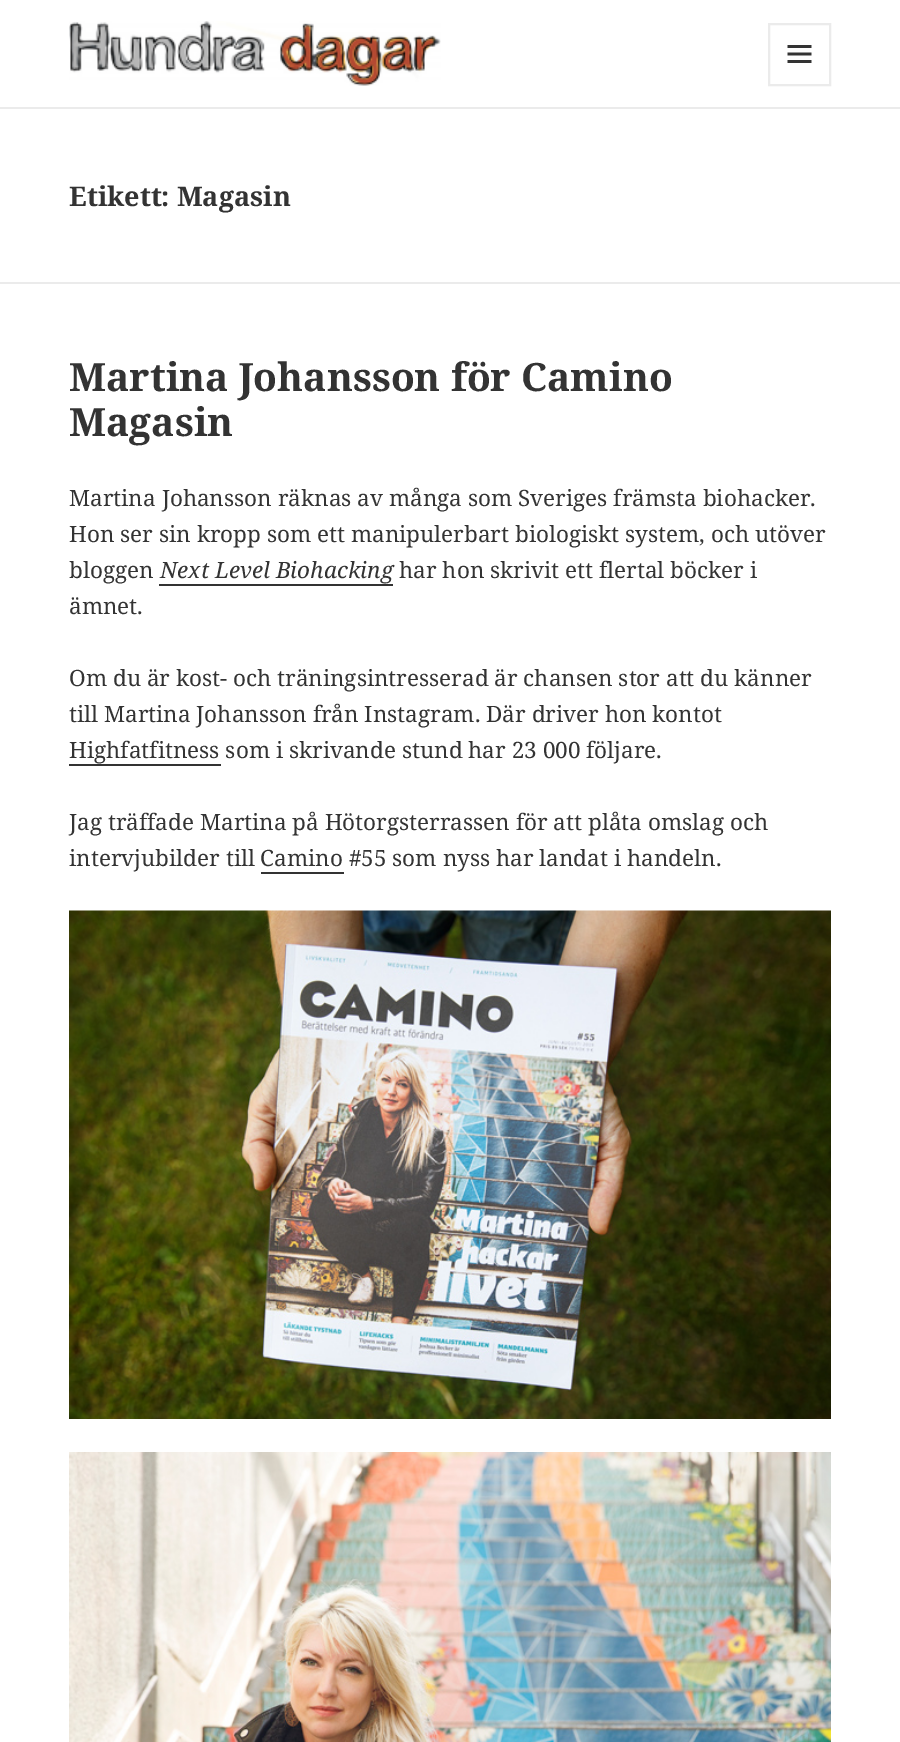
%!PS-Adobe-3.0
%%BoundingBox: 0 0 900 1742
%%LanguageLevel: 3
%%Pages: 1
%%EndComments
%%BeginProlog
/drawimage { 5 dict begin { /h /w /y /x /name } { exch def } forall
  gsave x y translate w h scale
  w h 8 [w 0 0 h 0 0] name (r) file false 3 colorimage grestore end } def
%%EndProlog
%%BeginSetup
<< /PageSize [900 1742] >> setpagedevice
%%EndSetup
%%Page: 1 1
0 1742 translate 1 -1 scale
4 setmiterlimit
1 setgray
0 0 900 1742 rectfill
0.922 setgray
0 107 900 2 rectfill
(images/1.raw) 69 21 372 65 drawimage
2 setlinewidth
769 24 61 61 rectstroke
(images/2.raw) 787 45 25 18 drawimage
0 282 900 2 rectfill
0.2 setgray
159 584 234 2 rectfill
69 764 152 2 rectfill
261 872 83 2 rectfill
(images/3.raw) 69 910 762 509 drawimage
(images/4.raw) 69 1452 762 290 drawimage
/NotoSerif-Bold [27 0 0 -27 0 0] selectfont
69 206 moveto (Etikett: Magasin) show
/NotoSerif-Bold [39 0 0 -39 0 0] selectfont
69 391 moveto (Martina Johansson för Camino) show
69 436 moveto (Magasin) show
/NotoSerif-Regular [22.5 0 0 -22.5 0 0] selectfont
69 506 moveto (Martina Johansson räknas av många som Sveriges främsta biohacker.) show
69 542 moveto (Hon ser sin kropp som ett manipulerbart biologiskt system, och utöver) show
69 578 moveto (bloggen) show
/NotoSerif-Italic [22.5 0 0 -22.5 0 0] selectfont
160 578 moveto (Next Level Biohacking) show
/NotoSerif-Regular [22.5 0 0 -22.5 0 0] selectfont
399 578 moveto (har hon skrivit ett flertal böcker i) show
69 614 moveto (ämnet.) show
69 686 moveto (Om du är kost- och träningsintresserad är chansen stor att du känner) show
69 722 moveto (till Martina Johansson från Instagram. Där driver hon kontot) show
69 758 moveto (Highfatfitness som i skrivande stund har 23 000 följare.) show
69 830 moveto (Jag träffade Martina på Hötorgsterrassen för att plåta omslag och) show
69 866 moveto (intervjubilder till Camino #55 som nyss har landat i handeln.) show
showpage
%%EOF
